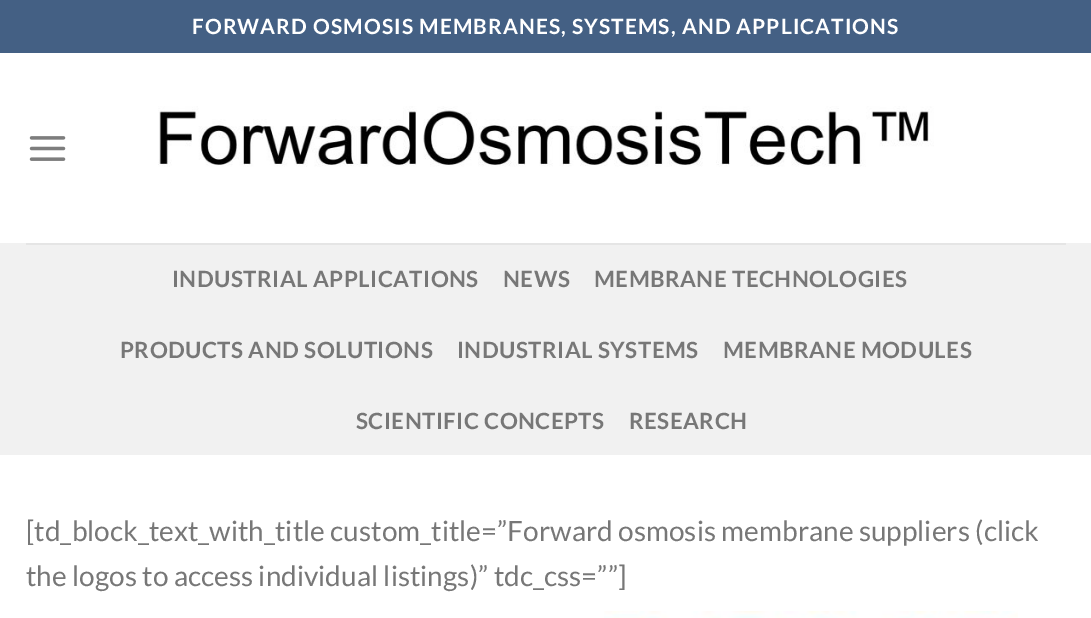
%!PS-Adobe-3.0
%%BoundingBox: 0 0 1091 618
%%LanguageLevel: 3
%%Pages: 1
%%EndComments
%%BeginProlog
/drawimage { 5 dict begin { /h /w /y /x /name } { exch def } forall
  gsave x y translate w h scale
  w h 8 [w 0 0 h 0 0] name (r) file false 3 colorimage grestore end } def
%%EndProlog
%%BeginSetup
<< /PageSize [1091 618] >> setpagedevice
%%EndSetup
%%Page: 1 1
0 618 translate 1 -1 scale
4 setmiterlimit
1 setgray
0 0 1091 618 rectfill
0.267 0.376 0.518 setrgbcolor
0 0 1091 53 rectfill
(images/1.raw) 29 136 37 25 drawimage
(images/2.raw) 158 106 776 61 drawimage
0.945 setgray
0 243 1091 212 rectfill
0.898 setgray
26 243 1040 2 rectfill
(images/3.raw) 604 611 414 7 drawimage
/Lato-Bold [21 0 0 -21 0 0] selectfont
1 setgray
192 34 moveto 1.05 0 (FORWARD OSMOSIS MEMBRANES, SYSTEMS, AND APPLICATIONS) ashow
/Lato-Bold [22.4 0 0 -22.4 0 0] selectfont
0.467 setgray
172 287 moveto 0.45 0 (INDUSTRIAL APPLICATIONS) ashow
503 287 moveto 0.45 0 (NEWS) ashow
594 287 moveto 0.45 0 (MEMBRANE TECHNOLOGIES) ashow
120 358 moveto 0.45 0 (PRODUCTS AND SOLUTIONS) ashow
457 358 moveto 0.45 0 (INDUSTRIAL SYSTEMS) ashow
723 358 moveto 0.45 0 (MEMBRANE MODULES) ashow
356 429 moveto 0.45 0 (SCIENTIFIC CONCEPTS) ashow
629 429 moveto 0.45 0 (RESEARCH) ashow
/Lato-Regular [28 0 0 -28 0 0] selectfont
26 541 moveto ([td_block_text_with_title custom_title=”Forward osmosis membrane suppliers \(click) show
26 586 moveto (the logos to access individual listings\)” tdc_css=””]) show
showpage
%%EOF
